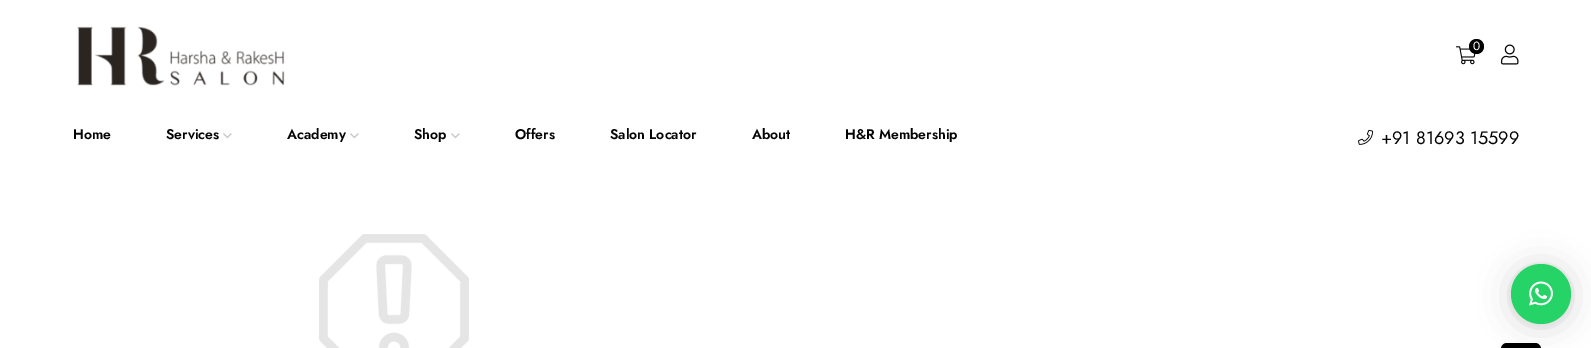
%!PS-Adobe-3.0
%%BoundingBox: 0 0 1591 348
%%LanguageLevel: 3
%%Pages: 1
%%EndComments
%%BeginProlog
/setalpha { dup .setfillconstantalpha .setstrokeconstantalpha } def
/rrect { 5 dict begin { /r /h /w /y /x } { exch def } forall
  x r add y moveto x w add y 2 copy h add r arct x w add y h add x 1 index r arct
  x y h add x y r arct x y 2 copy exch w add exch r arct closepath end } def
/softshadow { 12 dict begin { /a /b /q /h /w /y /x } { exch def } forall gsave /was 0 def
  9 -2 -9 { dup b mul 4 div /e exch def 1 sub .425 mul 2.718 exch exp 1 add a .99 .min exch div /now exch def
    1 1 now sub 1 was sub div sub setalpha /was now def
    w h .min e 2 mul add 0 gt { x e sub y e sub w e 2 mul add h e 2 mul add
      q e add b .6 mul add w h .min 2 div e add .min 0 .max rrect fill } if } for grestore end } def
/drawimage { 5 dict begin { /h /w /y /x /name } { exch def } forall
  gsave x y translate w h scale
  w h 8 [w 0 0 h 0 0] name (r) file false 3 colorimage grestore end } def
%%EndProlog
%%BeginSetup
<< /PageSize [1591 348] /PageUsesTransparency true >> setpagedevice
%%EndSetup
%%Page: 1 1
0 .pushpdf14devicefilter
0 348 translate 1 -1 scale
4 setmiterlimit
1 setgray
0 0 1591 348 rectfill
(images/1.raw) 77 26 208 60 drawimage
(images/2.raw) 1456 46 20 19 drawimage
0 setgray
newpath 1476.5 46.5 7.5 0 360 arc closepath fill
(images/3.raw) 1501 44 18 21 drawimage
(images/4.raw) 223 133 9 6 drawimage
(images/4.raw) 350 133 9 6 drawimage
(images/4.raw) 451 133 9 6 drawimage
(images/5.raw) 1358 129 15 16 drawimage
(images/6.raw) 319 234 150 114 drawimage
1501 343 40 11 6 rrect fill
1511 266 60 60 30 16 0.16 softshadow
1511 265 60 60 30 3 0.06 softshadow
0.145 0.827 0.4 setrgbcolor
newpath 1541 294 30 0 360 arc closepath fill
(images/7.raw) 1529 281 24 25 drawimage
/Jost-Regular [12 0 0 -12 0 0] selectfont
1 setgray
1473 50 moveto (0) show
/Jost-SemiBold [14 0 0 -14 0 0] selectfont
0.016 setgray
73 139 moveto (Home) show
166 139 moveto (Services) show
287 139 moveto (Academy) show
414 139 moveto (Shop) show
515 139 moveto (Offers) show
610 139 moveto (Salon Locator) show
752 139 moveto (About) show
845 139 moveto (H&R Membership) show
/Jost-Regular [18 0 0 -18 0 0] selectfont
1381 144 moveto (+91 81693 15599) show
.poppdf14devicefilter showpage
%%EOF
